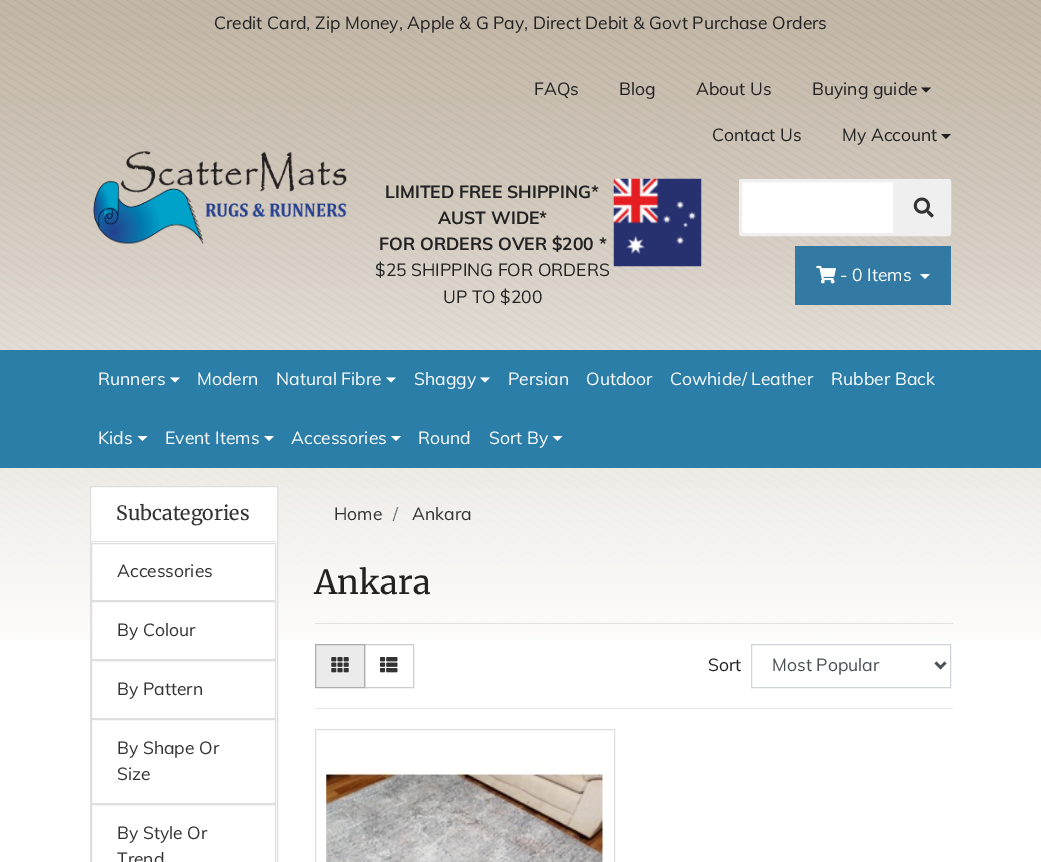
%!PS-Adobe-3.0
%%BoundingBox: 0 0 1041 862
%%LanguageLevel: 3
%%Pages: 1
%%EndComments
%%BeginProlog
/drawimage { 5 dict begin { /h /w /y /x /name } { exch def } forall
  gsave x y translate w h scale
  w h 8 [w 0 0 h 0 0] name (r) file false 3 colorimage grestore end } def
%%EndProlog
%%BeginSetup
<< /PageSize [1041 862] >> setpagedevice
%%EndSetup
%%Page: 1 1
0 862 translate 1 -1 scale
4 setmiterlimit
1 setgray
0 0 1041 862 rectfill
(images/1.raw) 0 0 1041 641 drawimage
(images/2.raw) 93 151 254 93 drawimage
0.122 setgray
newpath 921 87.5 moveto 931 87.5 lineto 926 92.5 lineto closepath fill
newpath 941 134 moveto 951 134 lineto 946 139 lineto closepath fill
(images/3.raw) 613 178 89 89 drawimage
1 setgray
newpath 741.5 180.5 moveto 894.5 180.5 lineto 894.5 234.5 lineto 741.5 234.5 lineto 741 234.5 740.5 234 740.5 233.5 curveto 740.5 181.5 lineto 740.5 181 741 180.5 741.5 180.5 curveto closepath gsave fill grestore
0.937 setgray
3 setlinewidth
stroke
newpath 895.5 179.5 moveto 948.5 179.5 lineto 949.5 179.5 950.5 180.5 950.5 181.5 curveto 950.5 233.5 lineto 950.5 234.5 949.5 235.5 948.5 235.5 curveto 895.5 235.5 lineto closepath gsave fill grestore
1 setlinewidth
stroke
(images/4.raw) 913 197 21 21 drawimage
0.196 0.478 0.639 setrgbcolor
795 246 156 59 rectfill
(images/5.raw) 816 265 20 19 drawimage
1 setgray
newpath 920 274 moveto 930 274 lineto 925 279 lineto closepath fill
0.169 0.494 0.659 setrgbcolor
0 350 1041 118 rectfill
1 setgray
newpath 170 377.5 moveto 180 377.5 lineto 175 382.5 lineto closepath fill
newpath 386 377.5 moveto 396 377.5 lineto 391 382.5 lineto closepath fill
newpath 480 377.5 moveto 490 377.5 lineto 485 382.5 lineto closepath fill
newpath 137.5 436 moveto 147.5 436 lineto 142.5 441 lineto closepath fill
newpath 264 436 moveto 274 436 lineto 269 441 lineto closepath fill
newpath 391 436 moveto 401 436 lineto 396 441 lineto closepath fill
newpath 552.5 436 moveto 562.5 436 lineto 557.5 441 lineto closepath fill
91 487 186 154 rectfill
0.875 setgray
90.5 486.5 187 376 rectstroke
0.871 0.886 0.902 setrgbcolor
91 541 185 1 rectfill
0.875 setgray
91.5 543.5 184 57 rectstroke
91.5 601.5 184 58 rectstroke
91.5 660.5 184 58 rectstroke
91.5 719.5 184 84 rectstroke
91.5 804.5 184 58 rectstroke
0.886 0.882 0.878 setrgbcolor
315 623 638 1 rectfill
0.8 setgray
364.5 644.5 49 43 rectstroke
0.922 setgray
newpath 315.5 644.5 moveto 364.5 644.5 lineto 364.5 687.5 lineto 315.5 687.5 lineto closepath gsave fill grestore
0.678 setgray
stroke
(images/6.raw) 331 657 18 16 drawimage
(images/7.raw) 380 657 18 16 drawimage
0.808 0.831 0.855 setrgbcolor
751.5 644.5 199 43 rectstroke
0.286 0.314 0.341 setrgbcolor
2.5 setlinewidth
newpath 935.5 662.5 moveto 940.5 667.5 lineto 945.5 662.5 lineto stroke
0.902 setgray
315 708 638 1 rectfill
0.875 setgray
1 setlinewidth
315.5 729.5 299 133 rectstroke
(images/8.raw) 326 765 277 97 drawimage
/Muli-Regular [17.5 0 0 -17.5 0 0] selectfont
0.133 setgray
214 29 moveto (Credit Card, Zip Money, Apple & G Pay, Direct Debit & Govt Purchase Orders) show
534 95 moveto (FAQs) show
619 95 moveto (Blog) show
696 95 moveto (About Us) show
812 95 moveto (Buying guide) show
712 141 moveto (Contact Us) show
842 141 moveto (My Account) show
/Muli-Bold [17.5 0 0 -17.5 0 0] selectfont
385 198 moveto (LIMITED FREE SHIPPING*) show
438 224 moveto (AUST WIDE*) show
379 250 moveto (FOR ORDERS OVER $200 *) show
/Muli-Regular [17.5 0 0 -17.5 0 0] selectfont
375 276 moveto ($25 SHIPPING FOR ORDERS) show
443 303 moveto (UP TO $200) show
1 setgray
840 281 moveto (- 0 Items) show
98 385 moveto (Runners) show
197 385 moveto (Modern) show
276 385 moveto (Natural Fibre) show
414 385 moveto (Shaggy) show
508 385 moveto (Persian) show
586 385 moveto (Outdoor) show
670 385 moveto (Cowhide/ Leather) show
831 385 moveto (Rubber Back) show
98 444 moveto (Kids) show
165 444 moveto (Event Items) show
291 444 moveto (Accessories) show
418 444 moveto (Round) show
489 444 moveto (Sort By) show
/Merriweather-Regular [19.75 0 0 -19.75 0 0] selectfont
0.2 setgray
116 520 moveto (Subcategories) show
/Muli-Regular [17.5 0 0 -17.5 0 0] selectfont
117 577 moveto (Accessories) show
117 636 moveto (By Colour) show
117 695 moveto (By Pattern) show
117 754 moveto (By Shape Or) show
117 780 moveto (Size) show
117 839 moveto (By Style Or) show
117 865 moveto (Trend) show
334 520 moveto (Home) show
0.424 0.459 0.49 setrgbcolor
393 520 moveto (/) show
0.2 setgray
412 520 moveto (Ankara) show
/Merriweather-Regular [33 0 0 -33 0 0] selectfont
0.133 setgray
314 594 moveto (Ankara) show
/Muli-Regular [17.5 0 0 -17.5 0 0] selectfont
708 671 moveto (Sort) show
0.286 0.314 0.341 setrgbcolor
772 671 moveto (Most Popular) show
showpage
%%EOF
